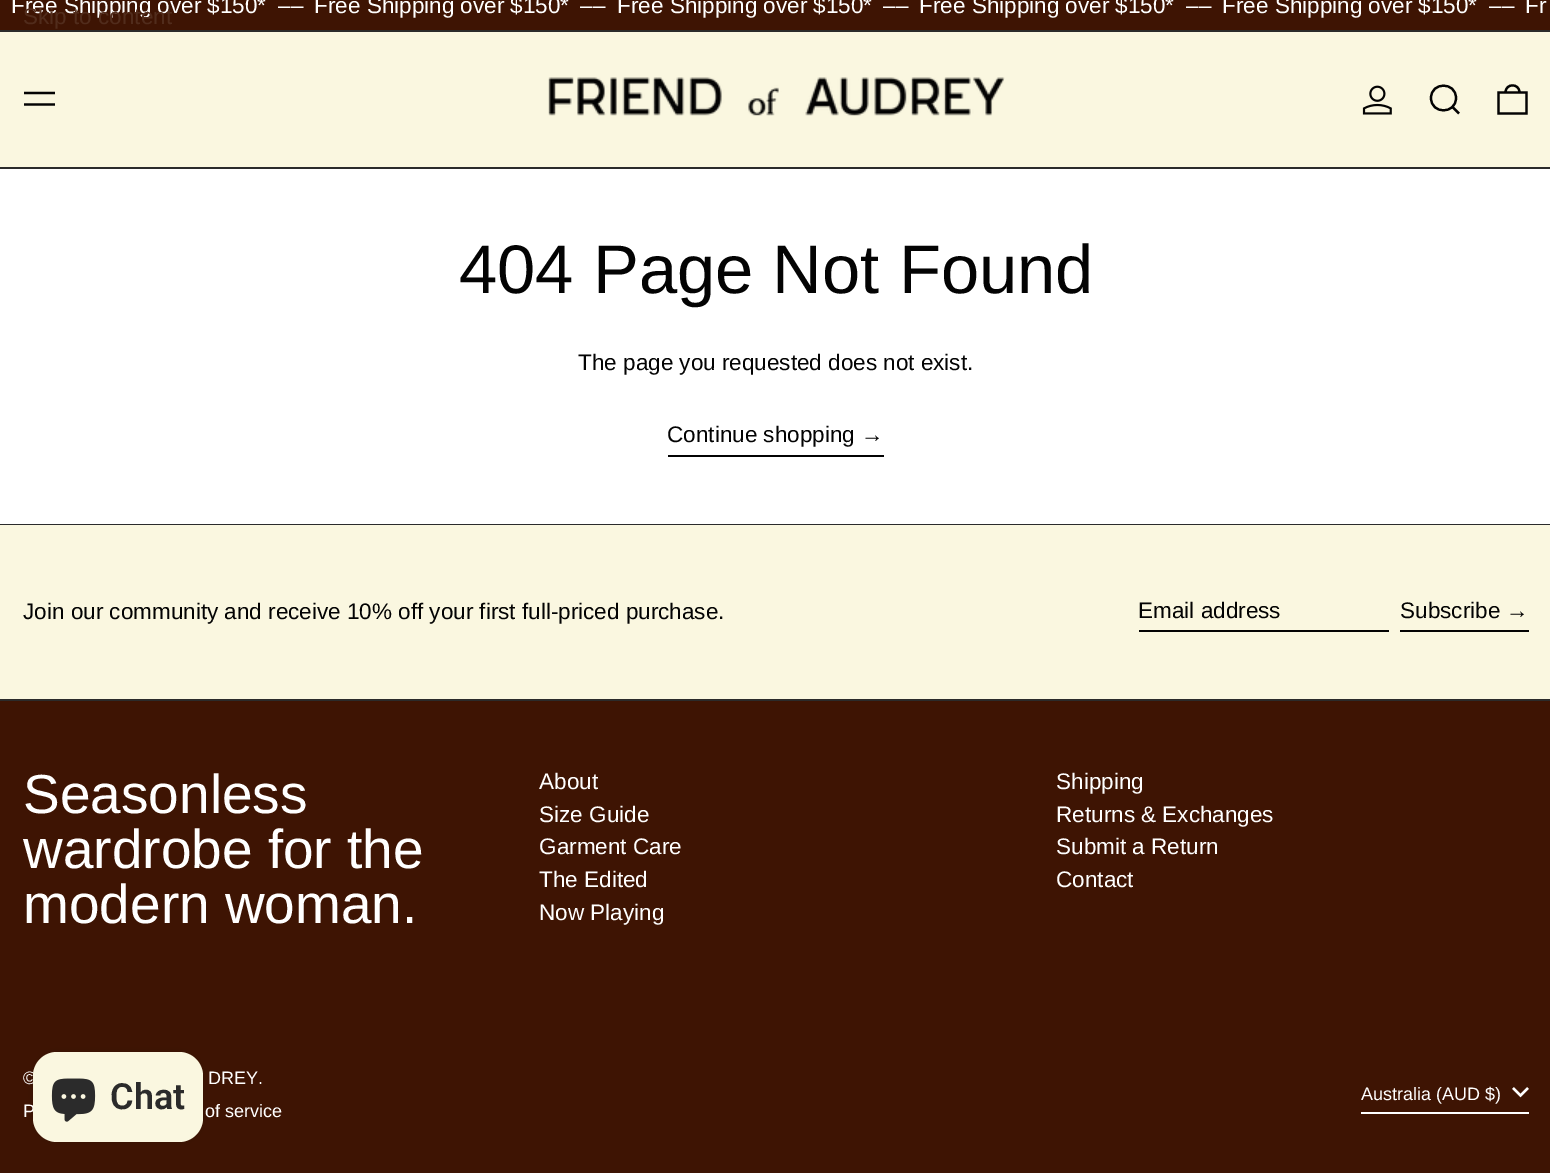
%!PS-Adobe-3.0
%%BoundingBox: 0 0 1550 1173
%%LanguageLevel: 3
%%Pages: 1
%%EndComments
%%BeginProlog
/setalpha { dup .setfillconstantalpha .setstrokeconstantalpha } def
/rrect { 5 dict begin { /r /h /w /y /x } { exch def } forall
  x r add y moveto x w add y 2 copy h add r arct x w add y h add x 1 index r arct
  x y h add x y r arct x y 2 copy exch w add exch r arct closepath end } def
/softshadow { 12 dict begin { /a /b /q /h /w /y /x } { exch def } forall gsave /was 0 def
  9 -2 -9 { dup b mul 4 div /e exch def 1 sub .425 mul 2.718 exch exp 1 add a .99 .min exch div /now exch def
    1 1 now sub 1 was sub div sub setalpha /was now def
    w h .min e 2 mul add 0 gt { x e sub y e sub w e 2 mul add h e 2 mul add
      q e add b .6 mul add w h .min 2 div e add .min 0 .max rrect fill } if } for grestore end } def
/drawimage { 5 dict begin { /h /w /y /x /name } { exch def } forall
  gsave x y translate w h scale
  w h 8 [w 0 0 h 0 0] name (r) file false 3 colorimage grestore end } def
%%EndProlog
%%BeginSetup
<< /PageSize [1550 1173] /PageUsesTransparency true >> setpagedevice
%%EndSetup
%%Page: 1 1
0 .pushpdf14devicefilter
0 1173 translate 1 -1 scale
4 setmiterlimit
1 setgray
0 0 1550 1173 rectfill
0.243 0.078 0.012 setrgbcolor
0 0 1550 30 rectfill
0.169 setgray
0 30 1550 2 rectfill
0.98 0.969 0.878 setrgbcolor
0 32 1550 135 rectfill
0.169 setgray
0 167 1550 2 rectfill
0.012 setgray
2.2 setlinewidth
newpath 24 93 moveto 55 93 lineto 24 104.5 moveto 55 104.5 lineto stroke
(images/1.raw) 548 77 457 39 drawimage
(images/2.raw) 1362 85 30 30 drawimage
newpath 1431 98 moveto 1431 114.5 1456 114.5 1456 98 curveto 1456 81.5 1431 81.5 1431 98 curveto closepath 1452.5 107 moveto 1459 113.5 lineto stroke
newpath 1498.5 92.5 moveto 1526.5 92.5 lineto 1526.5 113.5 lineto 1498.5 113.5 lineto closepath 1519.5 92.5 moveto 1519.5 83 1505.5 83 1505.5 92.5 curveto stroke
0.169 setgray
0 524 1550 1 rectfill
0.012 setgray
668 455 216 2 rectfill
0.243 0.078 0.012 setrgbcolor
0 1001 1550 172 rectfill
0.98 0.969 0.878 setrgbcolor
0 525 1550 174 rectfill
0.169 setgray
0 699 1550 2 rectfill
0.012 setgray
1139 630 250 2 rectfill
1400 630 129 2 rectfill
0.243 0.078 0.012 setrgbcolor
0 701 1550 300 rectfill
1 setgray
1361 1112 168 2 rectfill
newpath 1513 1088 moveto 1520.5 1095.5 lineto 1528 1088 lineto stroke
0 setgray
33 1052 170 90 24 4 0.15 softshadow
/LiberationSans-Regular [22.5 0 0 -22.5 0 0] selectfont
1 setgray
11 13 moveto (Free Shipping over $150*) show
278 13 moveto (––) show
314 13 moveto (Free Shipping over $150*) show
580 13 moveto (––) show
617 13 moveto (Free Shipping over $150*) show
883 13 moveto (––) show
919 13 moveto (Free Shipping over $150*) show
1186 13 moveto (––) show
1222 13 moveto (Free Shipping over $150*) show
1489 13 moveto (––) show
1525 13 moveto (Fr) show
0.318 0.173 0.11 setrgbcolor
23 24 moveto (Skip to content) show
/LiberationSans-Regular [68.75 0 0 -68.75 0 0] selectfont
0.012 setgray
459 293 moveto (404 Page Not Found) show
/LiberationSans-Regular [22.5 0 0 -22.5 0 0] selectfont
578 370 moveto (The page you requested does not exist.) show
667 442 moveto (Continue shopping →) show
23 619 moveto (Join our community and receive 10% off your first full-priced purchase.) show
1138 618 moveto (Email address) show
1400 618 moveto (Subscribe →) show
/LiberationSans-Regular [55 0 0 -55 0 0] selectfont
1 setgray
23 813 moveto (Seasonless) show
23 868 moveto (wardrobe for the) show
23 923 moveto (modern woman.) show
/LiberationSans-Regular [22.5 0 0 -22.5 0 0] selectfont
539 789 moveto (About) show
539 822 moveto (Size Guide) show
539 854 moveto (Garment Care) show
539 887 moveto (The Edited) show
539 920 moveto (Now Playing) show
1056 789 moveto (Shipping) show
1056 822 moveto (Returns & Exchanges) show
1056 854 moveto (Submit a Return) show
1056 887 moveto (Contact) show
/LiberationSans-Regular [18 0 0 -18 0 0] selectfont
23 1084 moveto (©) show
208 1084 moveto (DREY.) show
23 1117 moveto (P) show
205 1117 moveto (of service) show
1361 1100 moveto (Australia \(AUD $\)) show
0.98 0.969 0.878 setrgbcolor
33 1052 170 90 24 rrect fill
(images/3.raw) 51 1078 45 44 drawimage
/Roboto-SemiBold [36 0 0 -36 0 0] selectfont
0.169 setgray
110 1109 moveto (Chat) show
.poppdf14devicefilter showpage
%%EOF
